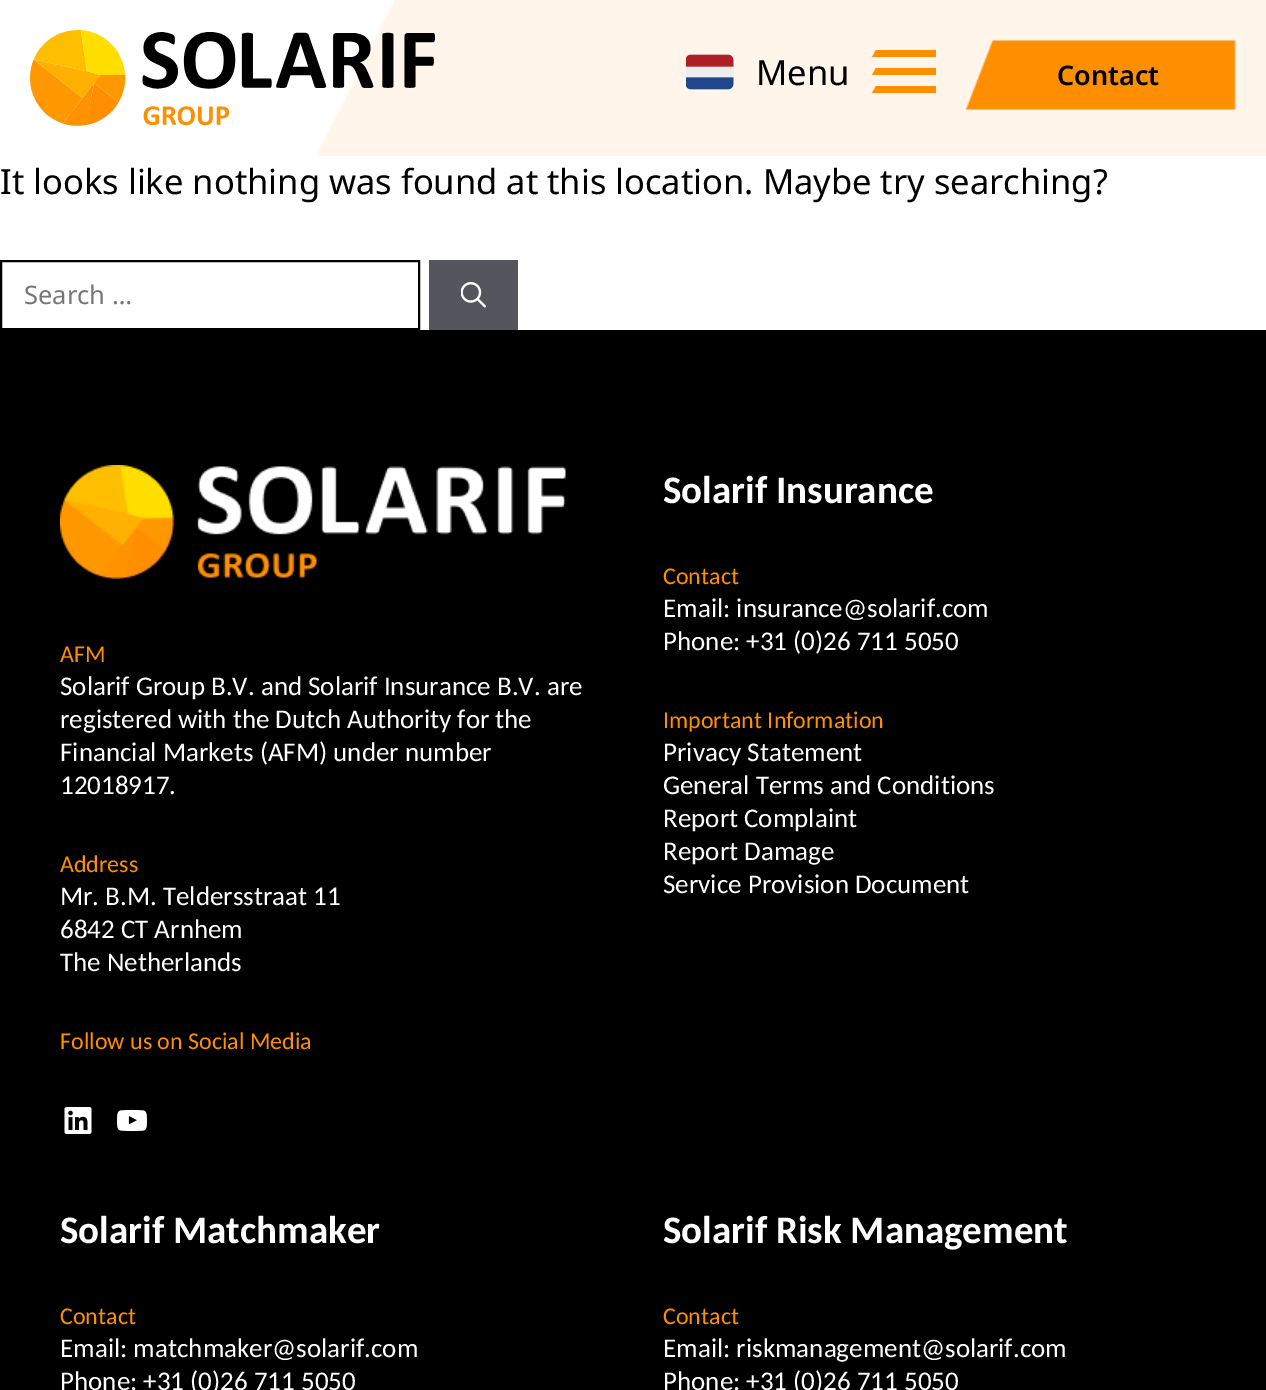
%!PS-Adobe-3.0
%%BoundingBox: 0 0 1266 1390
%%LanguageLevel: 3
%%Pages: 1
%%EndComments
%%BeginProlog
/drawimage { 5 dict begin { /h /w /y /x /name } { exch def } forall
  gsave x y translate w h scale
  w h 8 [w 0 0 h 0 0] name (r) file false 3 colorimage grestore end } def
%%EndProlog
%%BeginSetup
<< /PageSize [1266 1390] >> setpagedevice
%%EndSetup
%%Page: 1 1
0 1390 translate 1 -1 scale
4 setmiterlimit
1 setgray
0 0 1266 1390 rectfill
(images/1.raw) 316 0 950 156 drawimage
(images/2.raw) 30 30 405 96 drawimage
(images/3.raw) 686 54 48 36 drawimage
1 0.557 0 setrgbcolor
newpath 872 93 moveto 876 86 lineto 936 86 lineto 936 93 lineto closepath 872 75 moveto 876 68 lineto 936 68 lineto 936 75 lineto closepath 872 57 moveto 876 50 lineto 936 50 lineto 936 57 lineto closepath fill
(images/4.raw) 966 40 270 70 drawimage
0 setgray
2 setlinewidth
1 261 418 68 rectstroke
0.333 0.333 0.369 setrgbcolor
429 260 89 70 rectfill
(images/5.raw) 461 282 25 26 drawimage
0 setgray
0 330 1266 1060 rectfill
(images/6.raw) 60 465 506 114 drawimage
(images/7.raw) 64 1107 28 27 drawimage
(images/8.raw) 117 1109 30 23 drawimage
/NotoSans-Regular [34.5 0 0 -34.5 0 0] selectfont
756 85 moveto (Menu) show
/NotoSans-SemiBold [27 0 0 -27 0 0] selectfont
1057 85 moveto (Contact) show
/NotoSans-Regular [34.5 0 0 -34.5 0 0] selectfont
0 194 moveto (It looks like nothing was found at this location. Maybe try searching?) show
/NotoSans-Regular [25.5 0 0 -25.5 0 0] selectfont
0.459 setgray
24 304 moveto (Search …) show
/Carlito-Regular [24 0 0 -24 0 0] selectfont
1 0.557 0 setrgbcolor
60 662 moveto (AFM) show
/Carlito-Regular [27 0 0 -27 0 0] selectfont
1 setgray
60 695 moveto (Solarif Group B.V. and Solarif Insurance B.V. are) show
60 728 moveto (registered with the Dutch Authority for the) show
60 761 moveto (Financial Markets \(AFM\) under number) show
60 794 moveto (12018917.) show
/Carlito-Regular [24 0 0 -24 0 0] selectfont
1 0.557 0 setrgbcolor
60 872 moveto (Address) show
/Carlito-Regular [27 0 0 -27 0 0] selectfont
1 setgray
60 905 moveto (Mr. B.M. Teldersstraat 11) show
60 938 moveto (6842 CT Arnhem) show
60 971 moveto (The Netherlands) show
/Carlito-Regular [24 0 0 -24 0 0] selectfont
1 0.557 0 setrgbcolor
60 1049 moveto (Follow us on Social Media) show
/Carlito-Bold [39 0 0 -39 0 0] selectfont
1 setgray
663 503 moveto (Solarif Insurance) show
/Carlito-Regular [24 0 0 -24 0 0] selectfont
1 0.557 0 setrgbcolor
663 584 moveto (Contact) show
/Carlito-Regular [27 0 0 -27 0 0] selectfont
1 setgray
663 617 moveto (Email: insurance@solarif.com) show
663 650 moveto (Phone: +31 \(0\)26 711 5050) show
/Carlito-Regular [24 0 0 -24 0 0] selectfont
1 0.557 0 setrgbcolor
663 728 moveto (Important Information) show
/Carlito-Regular [27 0 0 -27 0 0] selectfont
1 setgray
663 761 moveto (Privacy Statement) show
663 794 moveto (General Terms and Conditions) show
663 827 moveto (Report Complaint) show
663 860 moveto (Report Damage) show
663 893 moveto (Service Provision Document) show
/Carlito-Bold [39 0 0 -39 0 0] selectfont
60 1243 moveto (Solarif Matchmaker) show
/Carlito-Regular [24 0 0 -24 0 0] selectfont
1 0.557 0 setrgbcolor
60 1324 moveto (Contact) show
/Carlito-Regular [27 0 0 -27 0 0] selectfont
1 setgray
60 1357 moveto (Email: matchmaker@solarif.com) show
60 1390 moveto (Phone: +31 \(0\)26 711 5050) show
/Carlito-Bold [39 0 0 -39 0 0] selectfont
663 1243 moveto (Solarif Risk Management) show
/Carlito-Regular [24 0 0 -24 0 0] selectfont
1 0.557 0 setrgbcolor
663 1324 moveto (Contact) show
/Carlito-Regular [27 0 0 -27 0 0] selectfont
1 setgray
663 1357 moveto (Email: riskmanagement@solarif.com) show
663 1390 moveto (Phone: +31 \(0\)26 711 5050) show
showpage
%%EOF
